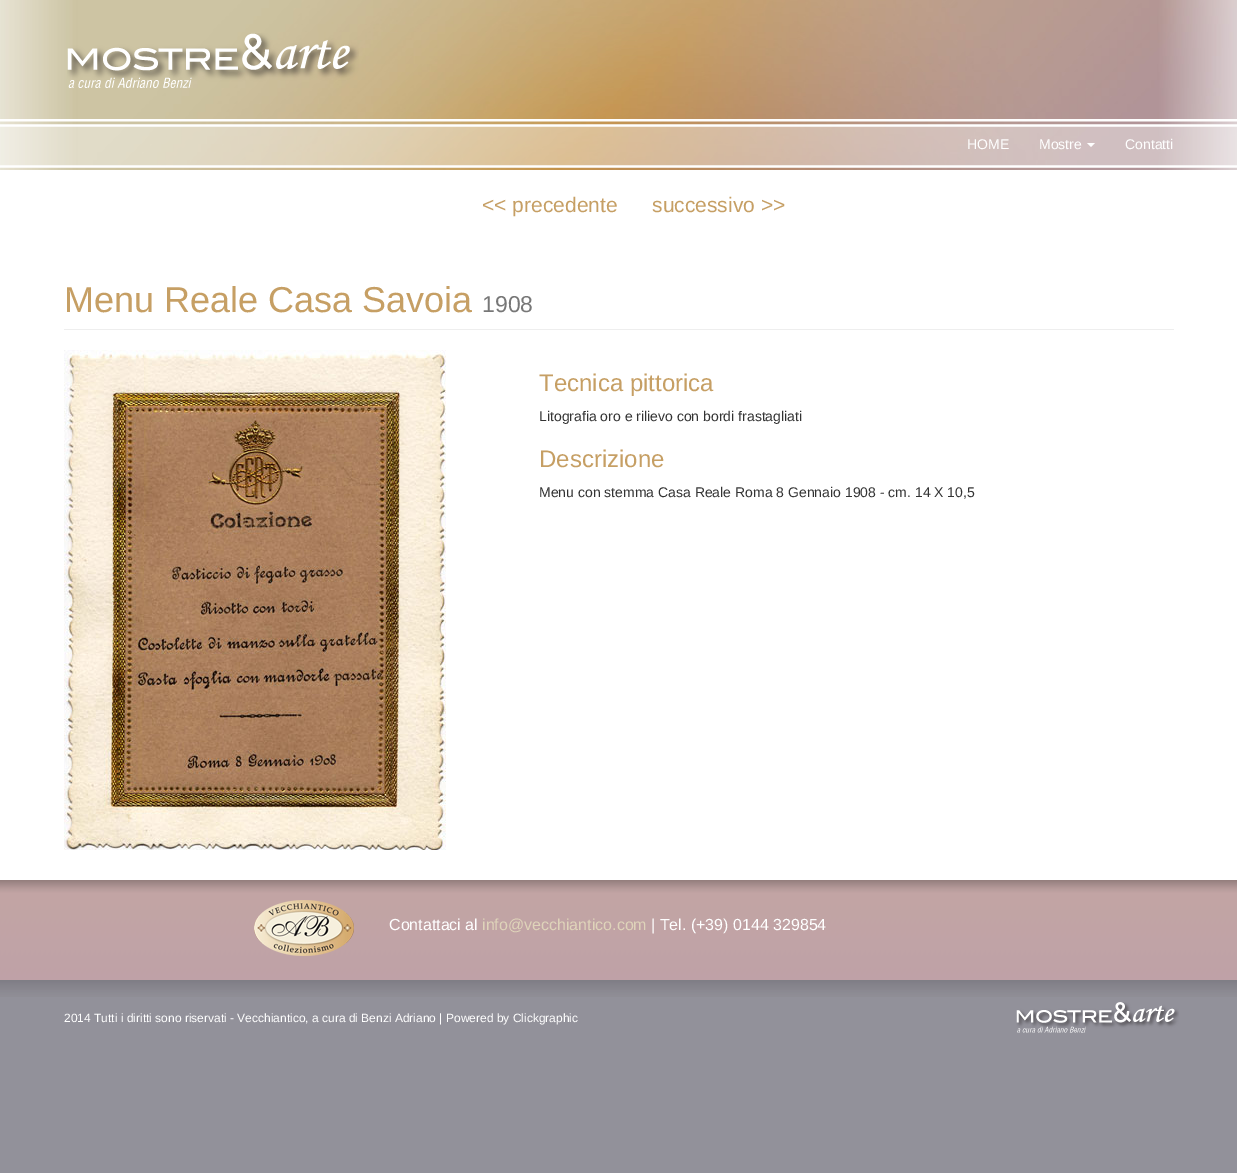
%!PS-Adobe-3.0
%%BoundingBox: 0 0 1237 1173
%%LanguageLevel: 3
%%Pages: 1
%%EndComments
%%BeginProlog
/drawimage { 5 dict begin { /h /w /y /x /name } { exch def } forall
  gsave x y translate w h scale
  w h 8 [w 0 0 h 0 0] name (r) file false 3 colorimage grestore end } def
%%EndProlog
%%BeginSetup
<< /PageSize [1237 1173] >> setpagedevice
%%EndSetup
%%Page: 1 1
0 1173 translate 1 -1 scale
4 setmiterlimit
0.573 0.569 0.604 setrgbcolor
0 0 1237 1173 rectfill
(images/1.raw) 0 0 1237 170 drawimage
(images/2.raw) 67 33 292 55 drawimage
(images/3.raw) 0 119 1237 49 drawimage
1 setgray
newpath 1087 143 moveto 1095 143 lineto 1091 147 lineto closepath fill
0 170 1237 710 rectfill
0.933 setgray
64 329 1110 1 rectfill
(images/4.raw) 64 350 382 500 drawimage
(images/5.raw) 0 880 1237 100 drawimage
(images/6.raw) 254 900 100 56 drawimage
(images/7.raw) 0 980 1237 17 drawimage
(images/8.raw) 1016 1002 163 31 drawimage
/LiberationSans-Regular [14 0 0 -14 0 0] selectfont
1 setgray
967 149 moveto (HOME) show
1039 149 moveto (Mostre) show
1125 149 moveto (Contatti) show
/LiberationSans-Regular [21 0 0 -21 0 0] selectfont
0.776 0.624 0.392 setrgbcolor
482 212 moveto (<< precedente) show
652 212 moveto (successivo >>) show
/LiberationSans-Regular [36 0 0 -36 0 0] selectfont
64 312 moveto (Menu Reale Casa Savoia) show
/LiberationSans-Regular [23 0 0 -23 0 0] selectfont
0.467 setgray
482 312 moveto (1908) show
/LiberationSans-Regular [24 0 0 -24 0 0] selectfont
0.776 0.624 0.392 setrgbcolor
539 391 moveto (Tecnica pittorica) show
/LiberationSans-Regular [14 0 0 -14 0 0] selectfont
0.2 setgray
539 421 moveto (Litografia oro e rilievo con bordi frastagliati) show
/LiberationSans-Regular [24 0 0 -24 0 0] selectfont
0.776 0.624 0.392 setrgbcolor
539 467 moveto (Descrizione) show
/LiberationSans-Regular [14 0 0 -14 0 0] selectfont
0.2 setgray
539 497 moveto (Menu con stemma Casa Reale Roma 8 Gennaio 1908 - cm. 14 X 10,5) show
/LiberationSans-Regular [16 0 0 -16 0 0] selectfont
1 setgray
389 930 moveto (Contattaci al) show
0.875 0.831 0.729 setrgbcolor
482 930 moveto (info@vecchiantico.com) show
1 setgray
651 930 moveto (| Tel. \(+39\) 0144 329854) show
/LiberationSans-Regular [12 0 0 -12 0 0] selectfont
64 1022 moveto (2014 Tutti i diritti sono riservati - Vecchiantico, a cura di Benzi Adriano | Powered by Clickgraphic) show
showpage
%%EOF
